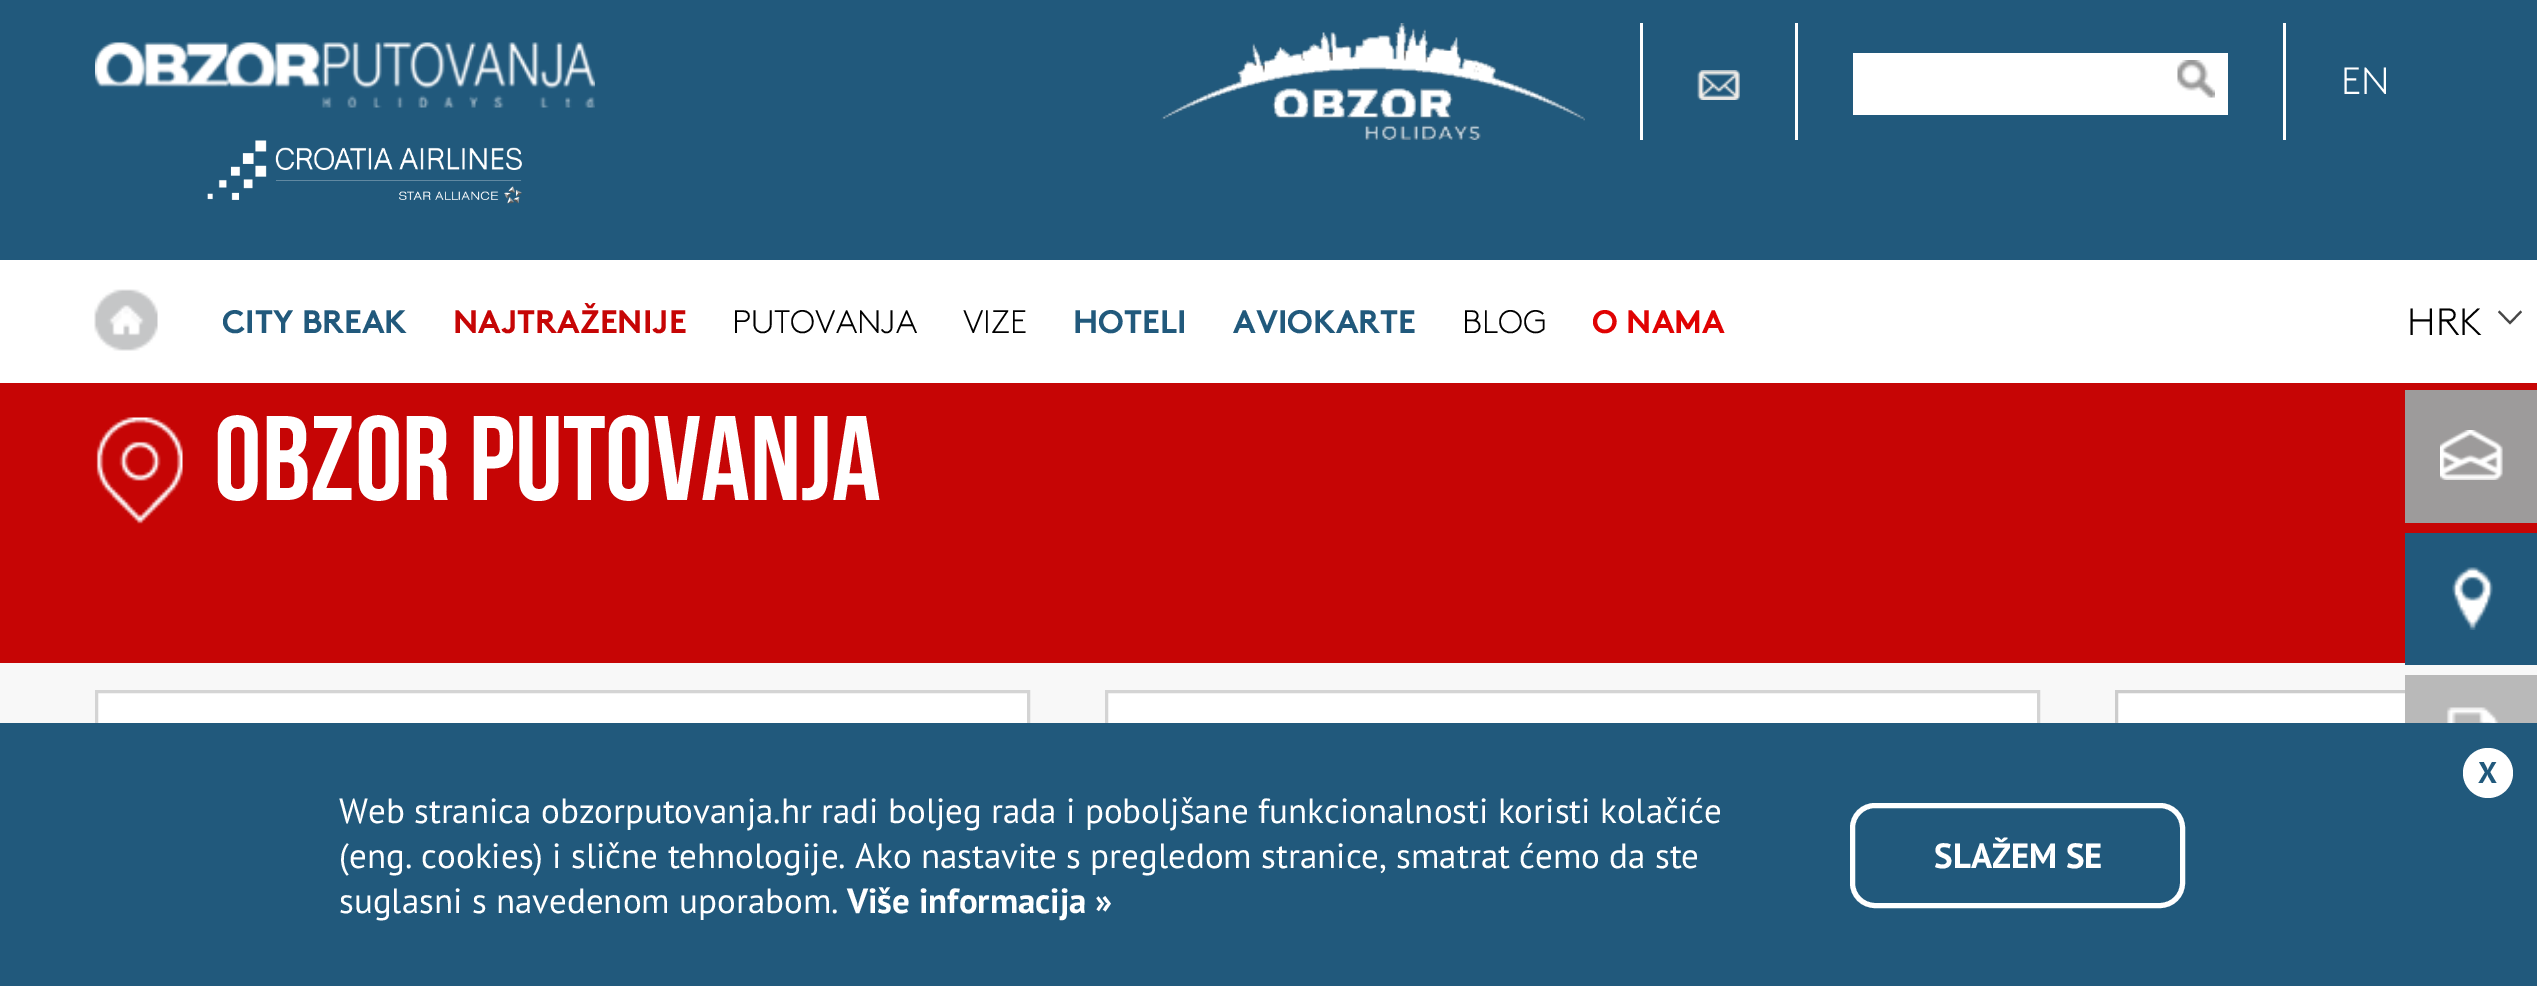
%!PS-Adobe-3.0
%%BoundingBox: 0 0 2537 986
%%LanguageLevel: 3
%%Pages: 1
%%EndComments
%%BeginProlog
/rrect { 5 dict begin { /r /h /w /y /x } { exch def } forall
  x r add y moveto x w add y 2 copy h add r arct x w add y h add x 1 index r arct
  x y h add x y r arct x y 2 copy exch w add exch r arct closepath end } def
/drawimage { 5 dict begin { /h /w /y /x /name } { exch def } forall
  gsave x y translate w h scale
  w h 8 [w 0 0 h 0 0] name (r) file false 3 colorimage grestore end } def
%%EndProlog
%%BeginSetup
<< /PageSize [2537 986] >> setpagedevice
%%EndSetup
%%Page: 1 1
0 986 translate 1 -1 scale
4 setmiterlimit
0.776 0.02 0.02 setrgbcolor
0 0 2537 986 rectfill
0.129 0.349 0.486 setrgbcolor
0 0 2537 260 rectfill
(images/1.raw) 95 42 500 66 drawimage
(images/2.raw) 207 140 315 64 drawimage
1 setgray
1640 23 3 117 rectfill
(images/3.raw) 1160 23 425 117 drawimage
1795 23 3 117 rectfill
(images/4.raw) 1697 70 43 30 drawimage
2283 23 3 117 rectfill
1853 53 375 62 rectfill
(images/5.raw) 2177 60 38 38 drawimage
0 260 2537 123 rectfill
(images/6.raw) 94 289 64 62 drawimage
0.278 setgray
newpath 2520.5 310.5 moveto 2522 312 lineto 2510 324.5 lineto 2498 312 lineto 2499.5 310.5 lineto 2510 321.5 lineto closepath fill
(images/7.raw) 96 417 87 107 drawimage
0.616 0.608 0.608 setrgbcolor
2405 390 132 133 rectfill
(images/8.raw) 2440 430 63 50 drawimage
0.973 setgray
0 663 2537 60 rectfill
0.129 0.349 0.486 setrgbcolor
2405 533 132 132 rectfill
(images/9.raw) 2452 567 41 63 drawimage
1 setgray
2118 693 287 30 rectfill
0.8 setgray
3 setlinewidth
2116.5 691.5 325 97 rectstroke
0.725 setgray
2405 675 132 48 rectfill
(images/10.raw) 2446 707 53 16 drawimage
1 setgray
98 693 929 30 rectfill
0.831 setgray
96.5 691.5 932 97 rectstroke
1 setgray
1108 693 929 30 rectfill
0.831 setgray
1106.5 691.5 932 97 rectstroke
0.129 0.349 0.486 setrgbcolor
0 723 2537 263 rectfill
1 setgray
newpath 2488 773 25 0 360 arc closepath fill
5 setlinewidth
1852.5 805.5 330 100 22.5 rrect stroke
/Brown-Light [38 0 0 -38 0 0] selectfont
2341 94 moveto (EN) show
/Brown-Bold [32.5 0 0 -32.5 0 0] selectfont
0.129 0.349 0.486 setrgbcolor
222 333 moveto (CITY BREAK) show
0.776 0.02 0.02 setrgbcolor
453 333 moveto (NAJTRAŽENIJE) show
/Brown-Light [32.5 0 0 -32.5 0 0] selectfont
0 setgray
732 333 moveto (PUTOVANJA) show
963 333 moveto (VIZE) show
/Brown-Bold [32.5 0 0 -32.5 0 0] selectfont
0.129 0.349 0.486 setrgbcolor
1073 333 moveto (HOTELI) show
1233 333 moveto (AVIOKARTE) show
/Brown-Light [32.5 0 0 -32.5 0 0] selectfont
0 setgray
1462 333 moveto (BLOG) show
/Brown-Bold [32.5 0 0 -32.5 0 0] selectfont
0.878 0.008 0.008 setrgbcolor
1592 333 moveto (O NAMA) show
/Brown-Light [38 0 0 -38 0 0] selectfont
0 setgray
2407 335 moveto (HRK) show
/BebasNeue-Bold [120 0 0 -120 0 0] selectfont
1 setgray
214 500 moveto (OBZOR PUTOVANJA) show
/PTSans-Bold [30 0 0 -30 0 0] selectfont
0.129 0.349 0.486 setrgbcolor
2478 783 moveto (X) show
/PTSans-Regular [35 0 0 -35 0 0] selectfont
1 setgray
339 823 moveto (Web stranica obzorputovanja.hr radi boljeg rada i poboljšane funkcionalnosti koristi kolačiće) show
339 868 moveto (\(eng. cookies\) i slične tehnologije. Ako nastavite s pregledom stranice, smatrat ćemo da ste) show
339 913 moveto (suglasni s navedenom uporabom.) show
/PTSans-Bold [35 0 0 -35 0 0] selectfont
847 913 moveto (Više informacija ») show
1934 868 moveto (SLAŽEM SE) show
showpage
%%EOF
